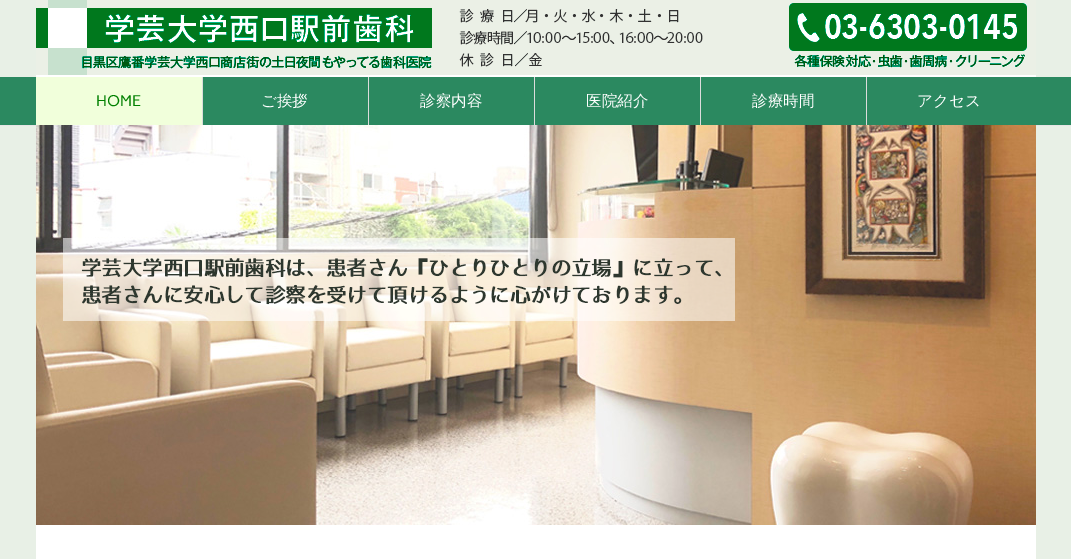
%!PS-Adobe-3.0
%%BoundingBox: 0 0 1071 559
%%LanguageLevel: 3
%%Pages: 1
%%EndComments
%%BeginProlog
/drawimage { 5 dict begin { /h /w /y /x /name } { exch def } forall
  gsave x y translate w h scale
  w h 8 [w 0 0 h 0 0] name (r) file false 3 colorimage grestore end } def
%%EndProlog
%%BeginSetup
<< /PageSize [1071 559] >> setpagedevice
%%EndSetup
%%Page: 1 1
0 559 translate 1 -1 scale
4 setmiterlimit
0.91 0.941 0.902 setrgbcolor
0 0 1071 559 rectfill
1 setgray
36 75 1000 2 rectfill
(images/1.raw) 36 0 1000 75 drawimage
0.169 0.537 0.376 setrgbcolor
0 77 1071 48 rectfill
0.898 setgray
0 125 1071 1 rectfill
0.945 1 0.859 setrgbcolor
36 77 166 48 rectfill
0.863 setgray
202 77 1 48 rectfill
368 77 1 48 rectfill
534 77 1 48 rectfill
700 77 1 48 rectfill
866 77 1 48 rectfill
(images/2.raw) 36 125 1000 400 drawimage
1 setgray
36 525 1000 34 rectfill
/Carme-Regular [15.5 0 0 -15.5 0 0] selectfont
0 0.502 0 setrgbcolor
96 106 moveto (HOME) show
/WenQuanYiZenHei-Medium [15.5 0 0 -15.5 0 0] selectfont
1 setgray
261 106 moveto (ご挨拶) show
420 106 moveto (診察内容) show
586 106 moveto (医院紹介) show
752 106 moveto (診療時間) show
917 106 moveto (アクセス) show
showpage
%%EOF
